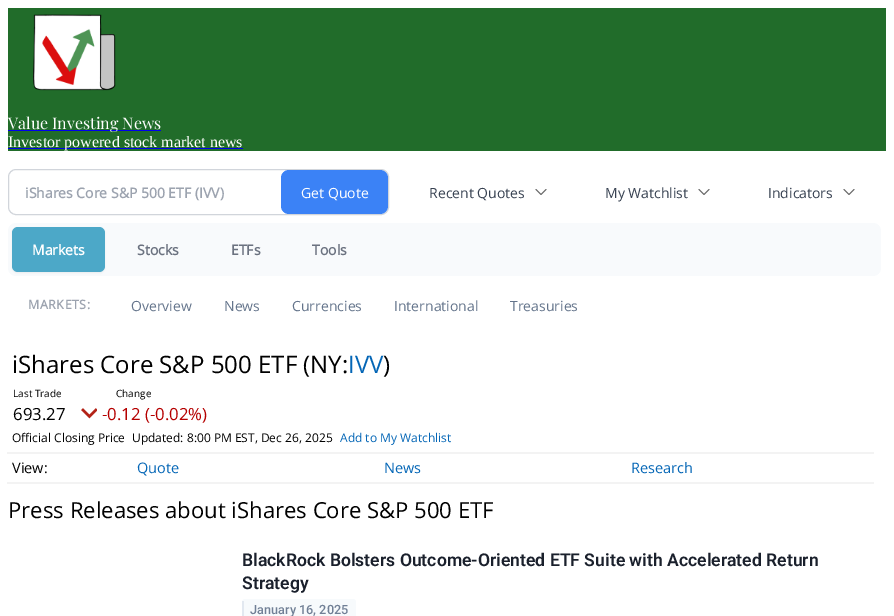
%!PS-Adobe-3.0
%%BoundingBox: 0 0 894 616
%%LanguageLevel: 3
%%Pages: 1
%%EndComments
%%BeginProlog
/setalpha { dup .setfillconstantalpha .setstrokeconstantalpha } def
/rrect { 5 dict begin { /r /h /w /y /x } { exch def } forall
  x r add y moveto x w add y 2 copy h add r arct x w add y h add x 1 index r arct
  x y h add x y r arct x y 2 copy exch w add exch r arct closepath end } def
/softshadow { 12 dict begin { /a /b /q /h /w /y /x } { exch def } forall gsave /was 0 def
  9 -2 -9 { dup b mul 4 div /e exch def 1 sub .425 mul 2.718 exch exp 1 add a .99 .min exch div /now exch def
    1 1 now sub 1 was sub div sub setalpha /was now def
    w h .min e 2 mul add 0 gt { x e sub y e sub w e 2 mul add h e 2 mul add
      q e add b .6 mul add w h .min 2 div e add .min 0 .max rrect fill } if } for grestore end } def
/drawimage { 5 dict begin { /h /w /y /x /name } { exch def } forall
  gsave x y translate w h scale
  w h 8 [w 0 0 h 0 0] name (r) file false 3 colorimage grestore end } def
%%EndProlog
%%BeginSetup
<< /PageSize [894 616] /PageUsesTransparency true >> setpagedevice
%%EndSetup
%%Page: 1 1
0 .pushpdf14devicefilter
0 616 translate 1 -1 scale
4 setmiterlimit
1 setgray
0 0 894 616 rectfill
0.129 0.424 0.165 setrgbcolor
8 8 878 143 rectfill
(images/1.raw) 33 14 83 77 drawimage
0 0 0.933 setrgbcolor
8 130 153 1 rectfill
8 148 235 1 rectfill
0.82 0.835 0.859 setrgbcolor
8.5 169.5 380 45 7.5 rrect stroke
0.231 0.51 0.965 setrgbcolor
281 170 107 44 8 rrect fill
0.4 setgray
1 setlinecap
1 setlinejoin
newpath 546 189.5 moveto 541 194.5 lineto 536 189.5 lineto stroke
newpath 709 189.5 moveto 704 194.5 lineto 699 189.5 lineto stroke
newpath 854 189.5 moveto 849 194.5 lineto 844 189.5 lineto stroke
0.973 0.98 0.988 setrgbcolor
8 223 873 53 8 rrect fill
0 setgray
12 228 93 45 6 1 0.05 softshadow
0.298 0.659 0.784 setrgbcolor
12 227 93 45 6 rrect fill
(images/2.raw) 81 408 16 11 drawimage
0.953 setgray
7 452 867 2 rectfill
7 482 867 2 rectfill
0.969 0.98 0.988 setrgbcolor
242 599 114 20 3 rrect fill
0.886 0.91 0.941 setrgbcolor
242 601 2 15 rectfill
/PlayfairDisplay-Regular [16 0 0 -16 0 0] selectfont
1 setgray
8 129 moveto (Value Investing News) show
/LiberationSerif-Regular [16 0 0 -16 0 0] selectfont
8 147 moveto (Investor powered stock market news) show
/OpenSans-Bold [14 0 0 -14 0 0] selectfont
0.612 0.639 0.686 setrgbcolor
25 198 moveto (iShares Core S&P 500 ETF \(IVV\)) show
/OpenSans-Regular [14 0 0 -14 0 0] selectfont
1 setgray
301 198 moveto (Get Quote) show
0.216 0.255 0.318 setrgbcolor
429 198 moveto (Recent Quotes) show
605 198 moveto (My Watchlist) show
768 198 moveto (Indicators) show
/OpenSans-Bold [14 0 0 -14 0 0] selectfont
1 setgray
32 255 moveto (Markets) show
0.42 0.447 0.502 setrgbcolor
137 255 moveto (Stocks) show
231 255 moveto (ETFs) show
312 255 moveto (Tools) show
/OpenSans-Bold [12.5 0 0 -12.5 0 0] selectfont
0.612 0.639 0.686 setrgbcolor
28 309 moveto 0.5 0 (MARKETS:) ashow
/OpenSans-Regular [14 0 0 -14 0 0] selectfont
0.392 0.455 0.545 setrgbcolor
131 311 moveto (Overview) show
224 311 moveto (News) show
292 311 moveto (Currencies) show
394 311 moveto (International) show
510 311 moveto (Treasuries) show
/OpenSans-Regular [24 0 0 -24 0 0] selectfont
0 setgray
12 373 moveto (iShares Core S&P 500 ETF \(NY:) show
0.016 0.4 0.714 setrgbcolor
348 373 moveto (IVV) show
0 setgray
383 373 moveto (\)) show
/OpenSans-Regular [10 0 0 -10 0 0] selectfont
13 397 moveto (Last Trade) show
/OpenSans-Regular [16.75 0 0 -16.75 0 0] selectfont
13 420 moveto (693.27) show
/OpenSans-Regular [10 0 0 -10 0 0] selectfont
116 397 moveto (Change) show
/OpenSans-Regular [16.75 0 0 -16.75 0 0] selectfont
0.71 0 0 setrgbcolor
102 420 moveto (-0.12 \(-0.02%\)) show
/OpenSans-Regular [12 0 0 -12 0 0] selectfont
0 setgray
12 442 moveto (Official Closing Price) show
132 442 moveto (Updated: 8:00 PM EST, Dec 26, 2025) show
0.016 0.4 0.714 setrgbcolor
340 442 moveto (Add to My Watchlist) show
/OpenSans-Regular [14.5 0 0 -14.5 0 0] selectfont
0 setgray
12 473 moveto (View:) show
0.016 0.4 0.714 setrgbcolor
137 473 moveto (Quote) show
384 473 moveto (News) show
631 473 moveto (Research) show
/OpenSans-Regular [22.1 0 0 -22.1 0 0] selectfont
0 setgray
8 518 moveto (Press Releases about iShares Core S&P 500 ETF) show
/Roboto-SemiBold [17.6 0 0 -17.6 0 0] selectfont
0.102 0.125 0.173 setrgbcolor
242 566 moveto (BlackRock Bolsters Outcome-Oriented ETF Suite with Accelerated Return) show
242 589 moveto (Strategy) show
/Roboto-Medium [12.75 0 0 -12.75 0 0] selectfont
0.443 0.502 0.588 setrgbcolor
250 614 moveto (January 16, 2025) show
.poppdf14devicefilter showpage
%%EOF
